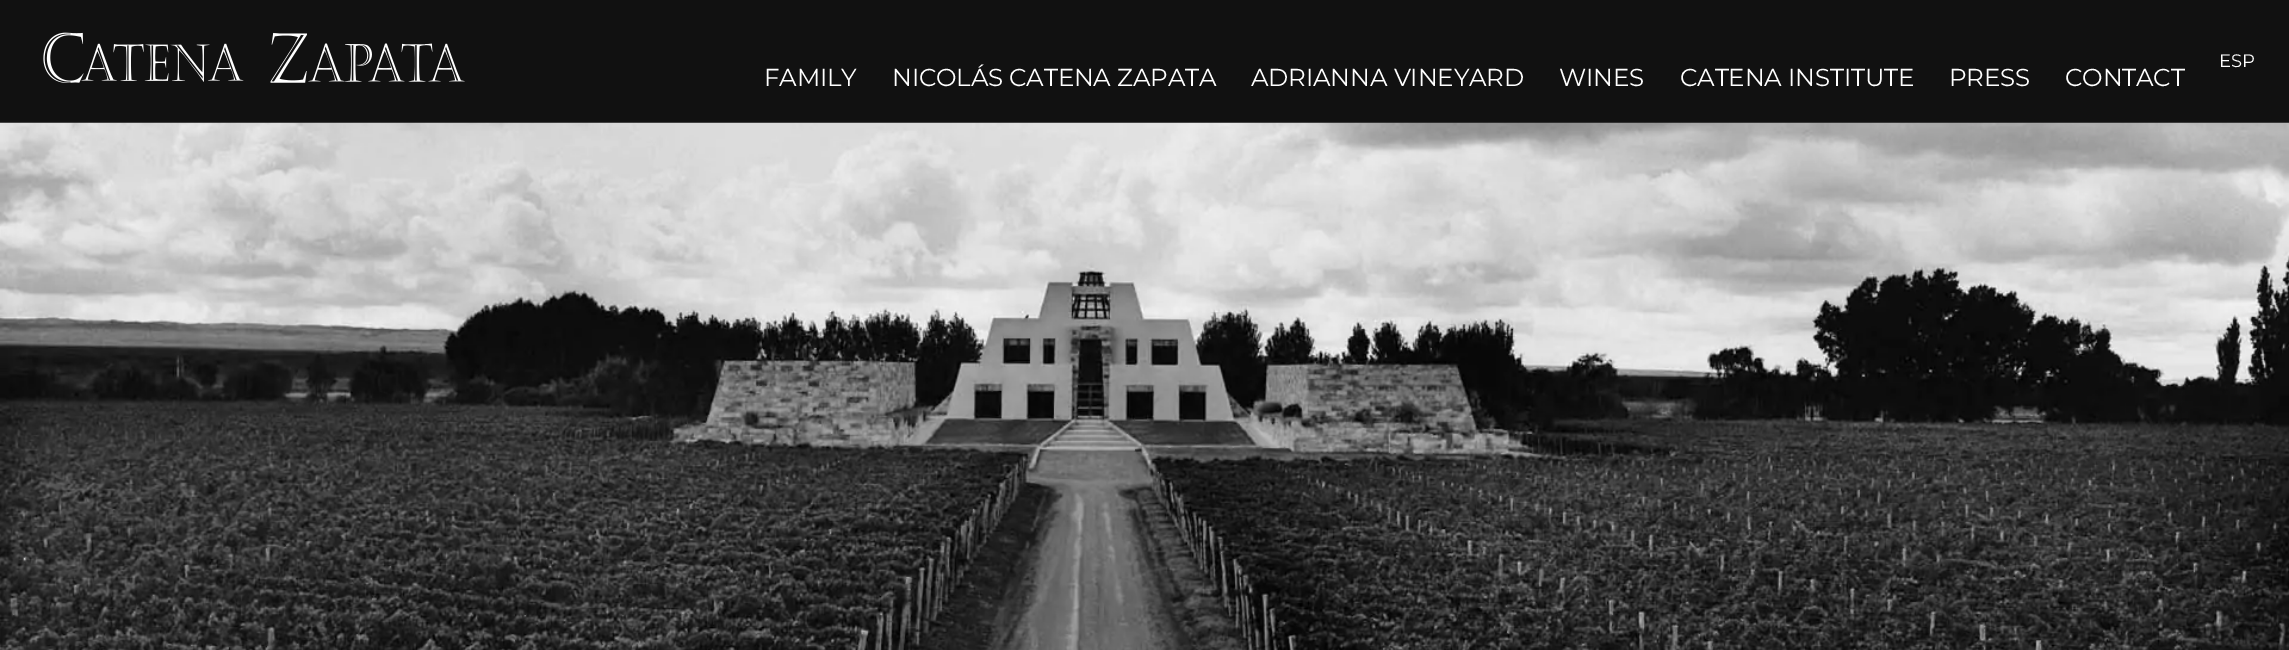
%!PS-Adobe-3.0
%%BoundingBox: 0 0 2289 650
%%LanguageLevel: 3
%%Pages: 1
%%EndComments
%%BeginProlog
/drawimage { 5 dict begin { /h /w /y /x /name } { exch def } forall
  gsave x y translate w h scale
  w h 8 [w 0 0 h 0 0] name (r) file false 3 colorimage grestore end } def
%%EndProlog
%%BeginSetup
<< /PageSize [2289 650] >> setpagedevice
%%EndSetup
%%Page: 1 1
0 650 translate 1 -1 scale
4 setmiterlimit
0.067 setgray
0 0 2289 650 rectfill
(images/1.raw) 43 32 422 51 drawimage
(images/2.raw) 0 122 2289 528 drawimage
/Montserrat-Regular [18 0 0 -18 0 0] selectfont
1 setgray
2219 67 moveto -0.2 0 (ESP) ashow
/Montserrat-Regular [24.5 0 0 -24.5 0 0] selectfont
764 86 moveto -0.2 0 (FAMILY) ashow
892 86 moveto -0.2 0 (NICOLÁS CATENA ZAPATA) ashow
1251 86 moveto -0.2 0 (ADRIANNA VINEYARD) ashow
1559 86 moveto -0.2 0 (WINES) ashow
1680 86 moveto -0.2 0 (CATENA INSTITUTE) ashow
1949 86 moveto -0.2 0 (PRESS) ashow
2065 86 moveto -0.2 0 (CONTACT) ashow
showpage
%%EOF
